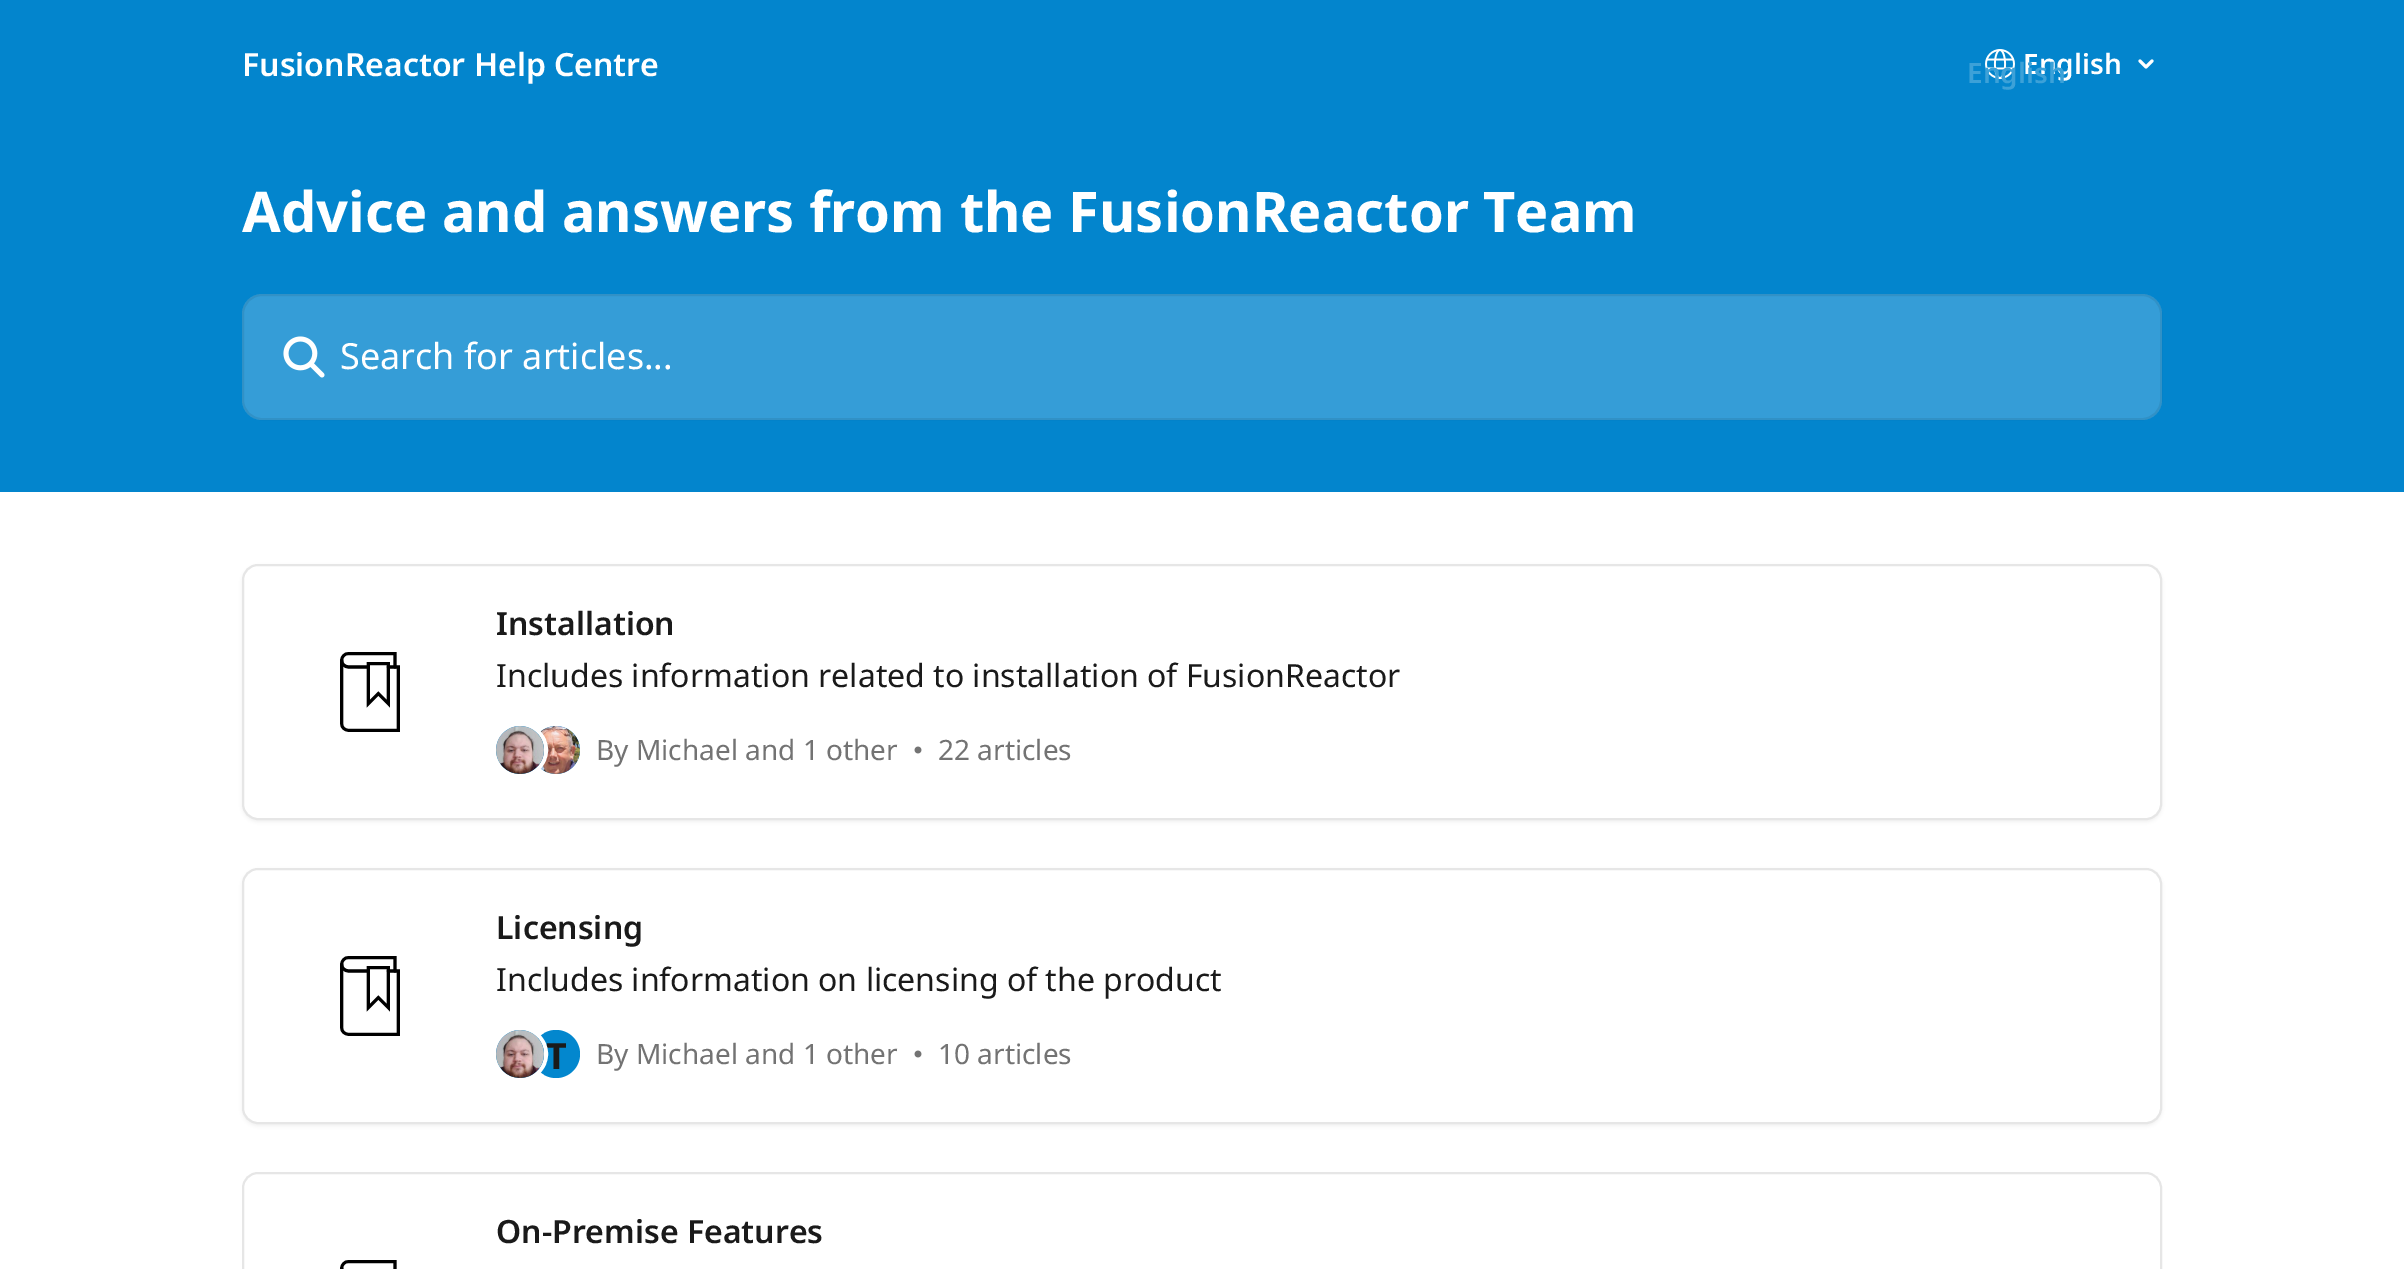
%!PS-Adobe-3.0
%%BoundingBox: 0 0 2404 1269
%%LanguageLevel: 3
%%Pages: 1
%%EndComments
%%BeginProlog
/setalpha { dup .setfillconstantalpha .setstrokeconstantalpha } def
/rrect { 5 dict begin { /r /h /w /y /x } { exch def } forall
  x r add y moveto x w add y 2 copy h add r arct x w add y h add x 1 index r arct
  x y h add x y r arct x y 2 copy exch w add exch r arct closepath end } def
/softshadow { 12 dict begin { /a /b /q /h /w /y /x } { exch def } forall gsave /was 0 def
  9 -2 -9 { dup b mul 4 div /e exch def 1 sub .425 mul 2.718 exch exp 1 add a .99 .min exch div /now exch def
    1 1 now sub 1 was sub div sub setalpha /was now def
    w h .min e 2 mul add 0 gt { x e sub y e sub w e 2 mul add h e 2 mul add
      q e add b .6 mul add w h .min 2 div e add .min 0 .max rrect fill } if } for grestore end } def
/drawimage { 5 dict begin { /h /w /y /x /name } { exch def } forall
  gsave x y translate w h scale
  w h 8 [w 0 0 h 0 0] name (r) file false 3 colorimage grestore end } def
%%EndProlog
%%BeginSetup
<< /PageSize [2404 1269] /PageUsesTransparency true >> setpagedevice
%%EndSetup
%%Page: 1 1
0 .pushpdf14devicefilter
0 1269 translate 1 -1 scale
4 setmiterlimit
1 setgray
0 0 2404 1269 rectfill
0.012 0.522 0.804 setrgbcolor
0 0 2404 492 rectfill
(images/1.raw) 1985 49 30 30 drawimage
1 setgray
3 setlinewidth
1 setlinecap
1 setlinejoin
newpath 2140 61 moveto 2146 67 lineto 2152 61 lineto stroke
0.2 setalpha
242 294 1920 126 20 rrect fill
0.08 setalpha
0 setgray
2 setlinewidth
0 setlinecap
0 setlinejoin
243 295 1918 124 19 rrect stroke
1 setalpha
(images/2.raw) 283 336 42 42 drawimage
242 566 1920 256 16 2 0.05 softshadow
1 setgray
243 565 1918 254 15 rrect gsave fill grestore
0.902 setgray
stroke
(images/3.raw) 340 652 60 80 drawimage
(images/5.raw) 537 726 43 48 drawimage
1 setgray
4 setlinewidth
newpath 520 750 26 0 360 arc closepath stroke
(images/4.raw) 496 726 48 48 drawimage
(images/6.raw) 914 746 8 8 drawimage
0 setgray
242 870 1920 256 16 2 0.05 softshadow
1 setgray
243 869 1918 254 15 rrect gsave fill grestore
0.902 setgray
2 setlinewidth
stroke
(images/7.raw) 340 956 60 80 drawimage
0.012 0.529 0.808 setrgbcolor
newpath 556 1054 24 0 360 arc closepath fill
(images/6.raw) 914 1050 8 8 drawimage
0.902 setgray
243 1173 1918 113 15 rrect stroke
(images/9.raw) 340 1260 57 9 drawimage
/NotoSans-SemiBold [32 0 0 -32 0 0] selectfont
1 setgray
242 76 moveto (FusionReactor Help Centre) show
/NotoSans-SemiBold [28 0 0 -28 0 0] selectfont
2023 74 moveto (English) show
0.235 0.631 0.847 setrgbcolor
1967 83 moveto (English) show
/NotoSans-Bold [56 0 0 -56 0 0] selectfont
1 setgray
242 232 moveto (Advice and answers from the FusionReactor Team) show
/NotoSans-Regular [36 0 0 -36 0 0] selectfont
340 369 moveto (Search for articles...) show
/NotoSans-SemiBold [32 0 0 -32 0 0] selectfont
0.102 setgray
496 635 moveto (Installation) show
/NotoSans-Regular [32 0 0 -32 0 0] selectfont
496 687 moveto (Includes information related to installation of FusionReactor) show
/NotoSans-Regular [28 0 0 -28 0 0] selectfont
0.451 setgray
596 760 moveto (By Michael and 1 other) show
938 760 moveto (22 articles) show
/NotoSans-SemiBold [32 0 0 -32 0 0] selectfont
0.102 setgray
496 939 moveto (Licensing) show
/NotoSans-Regular [32 0 0 -32 0 0] selectfont
496 991 moveto (Includes information on licensing of the product) show
/NotoSans-Bold [36 0 0 -36 0 0] selectfont
546 1069 moveto (T) show
1 setgray
4 setlinewidth
newpath 520 1054 26 0 360 arc closepath stroke
(images/8.raw) 496 1030 48 48 drawimage
/NotoSans-Regular [28 0 0 -28 0 0] selectfont
0.451 setgray
596 1064 moveto (By Michael and 1 other) show
938 1064 moveto (10 articles) show
/NotoSans-SemiBold [32 0 0 -32 0 0] selectfont
0.102 setgray
496 1243 moveto (On-Premise Features) show
.poppdf14devicefilter showpage
%%EOF
